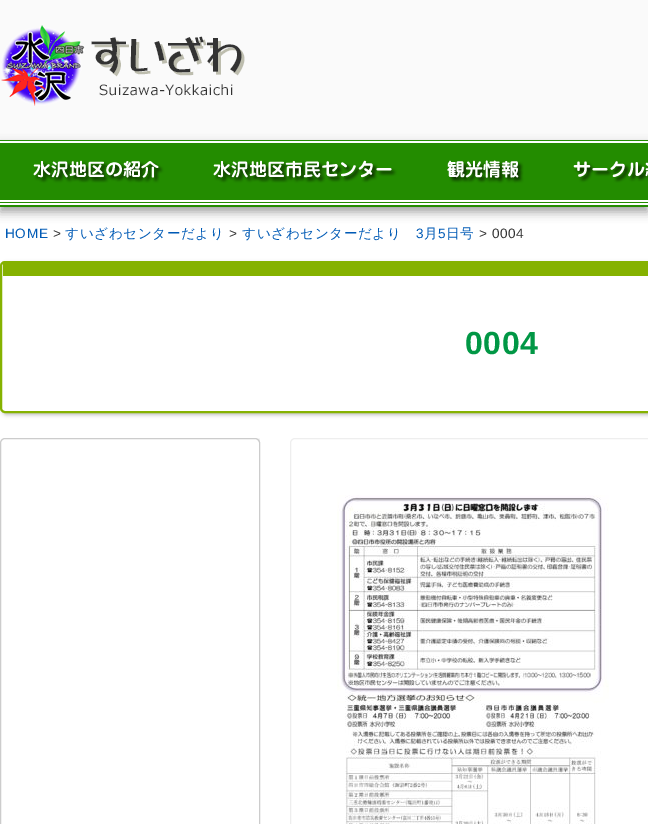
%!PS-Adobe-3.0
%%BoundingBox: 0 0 648 824
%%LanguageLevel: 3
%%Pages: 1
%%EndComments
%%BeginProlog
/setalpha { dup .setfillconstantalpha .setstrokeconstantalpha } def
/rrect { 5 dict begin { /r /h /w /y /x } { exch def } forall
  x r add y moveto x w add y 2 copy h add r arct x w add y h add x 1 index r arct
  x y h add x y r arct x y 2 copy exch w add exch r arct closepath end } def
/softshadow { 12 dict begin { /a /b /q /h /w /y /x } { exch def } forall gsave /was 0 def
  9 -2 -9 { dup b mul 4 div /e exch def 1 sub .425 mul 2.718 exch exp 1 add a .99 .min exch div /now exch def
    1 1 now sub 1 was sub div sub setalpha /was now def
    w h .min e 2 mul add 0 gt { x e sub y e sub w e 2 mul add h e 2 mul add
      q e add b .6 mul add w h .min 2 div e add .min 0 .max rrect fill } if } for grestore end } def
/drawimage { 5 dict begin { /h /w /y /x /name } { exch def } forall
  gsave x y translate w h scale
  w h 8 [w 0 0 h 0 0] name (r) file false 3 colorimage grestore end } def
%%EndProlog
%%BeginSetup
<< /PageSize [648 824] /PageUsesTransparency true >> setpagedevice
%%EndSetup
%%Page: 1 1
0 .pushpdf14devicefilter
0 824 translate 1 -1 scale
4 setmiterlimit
1 setgray
0 0 648 824 rectfill
0.98 setgray
0 0 648 140 rectfill
(images/1.raw) 1 25 244 81 drawimage
0.627 setgray
0 145 648 67 0 5 1 softshadow
(images/2.raw) 0 140 648 2 drawimage
(images/3.raw) 0 142 180 65 drawimage
(images/4.raw) 180 142 237 65 drawimage
(images/5.raw) 417 142 128 65 drawimage
(images/6.raw) 545 142 103 65 drawimage
gsave
newpath 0 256 moveto 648 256 lineto 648 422 lineto 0 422 lineto closepath 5 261 moveto 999 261 lineto 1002 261 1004 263 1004 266 curveto 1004 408 lineto 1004 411 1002 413 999 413 curveto 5 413 lineto 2 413 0 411 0 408 curveto 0 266 lineto 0 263 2 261 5 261 curveto closepath eoclip newpath
0.753 setgray
2 263 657 152 5 2 1 softshadow
grestore
0.522 0.698 0 setrgbcolor
2 setlinewidth
1 262 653 150 4 rrect stroke
3 263 645 13 rectfill
gsave
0 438 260 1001 rectclip
newpath 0 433 moveto 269 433 lineto 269 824 lineto 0 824 lineto closepath 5 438 moveto 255 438 lineto 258 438 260 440 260 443 curveto 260 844 lineto 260 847 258 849 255 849 curveto 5 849 lineto 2 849 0 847 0 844 curveto 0 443 lineto 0 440 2 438 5 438 curveto closepath eoclip newpath
0.753 setgray
2 440 260 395 5 2 1 softshadow
grestore
0.8 setgray
1 setlinewidth
0.5 438.5 259 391 4.5 rrect stroke
0.933 setgray
290.5 438.5 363 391 4.5 rrect stroke
(images/7.raw) 337 495 272 329 drawimage
/LiberationSans-Regular [13.6 0 0 -13.6 0 0] selectfont
0 0.353 0.71 setrgbcolor
5 238 moveto 0.6 0 (HOME) ashow
0.2 setgray
53 238 moveto 0.6 0 (>) ashow
/WenQuanYiZenHei-Medium [13.6 0 0 -13.6 0 0] selectfont
0 0.353 0.71 setrgbcolor
65 238 moveto 0.6 0 (すいざわセンターだより) ashow
/LiberationSans-Regular [13.6 0 0 -13.6 0 0] selectfont
0.2 setgray
229 238 moveto 0.6 0 (>) ashow
/WenQuanYiZenHei-Medium [13.6 0 0 -13.6 0 0] selectfont
0 0.353 0.71 setrgbcolor
242 238 moveto 0.6 0 (すいざわセンターだより) ashow
/LiberationSans-Regular [13.6 0 0 -13.6 0 0] selectfont
416 238 moveto 0.6 0 (3) ashow
/WenQuanYiZenHei-Medium [13.6 0 0 -13.6 0 0] selectfont
424 238 moveto 0.6 0 (月) ashow
/LiberationSans-Regular [13.6 0 0 -13.6 0 0] selectfont
438 238 moveto 0.6 0 (5) ashow
/WenQuanYiZenHei-Medium [13.6 0 0 -13.6 0 0] selectfont
446 238 moveto 0.6 0 (日号) ashow
/LiberationSans-Regular [13.6 0 0 -13.6 0 0] selectfont
0.2 setgray
479 238 moveto 0.6 0 (> 0004) ashow
/LiberationSans-Bold [32 0 0 -32 0 0] selectfont
0.004 0.592 0.271 setrgbcolor
465 354 moveto 0.6 0 (0004) ashow
.poppdf14devicefilter showpage
%%EOF
